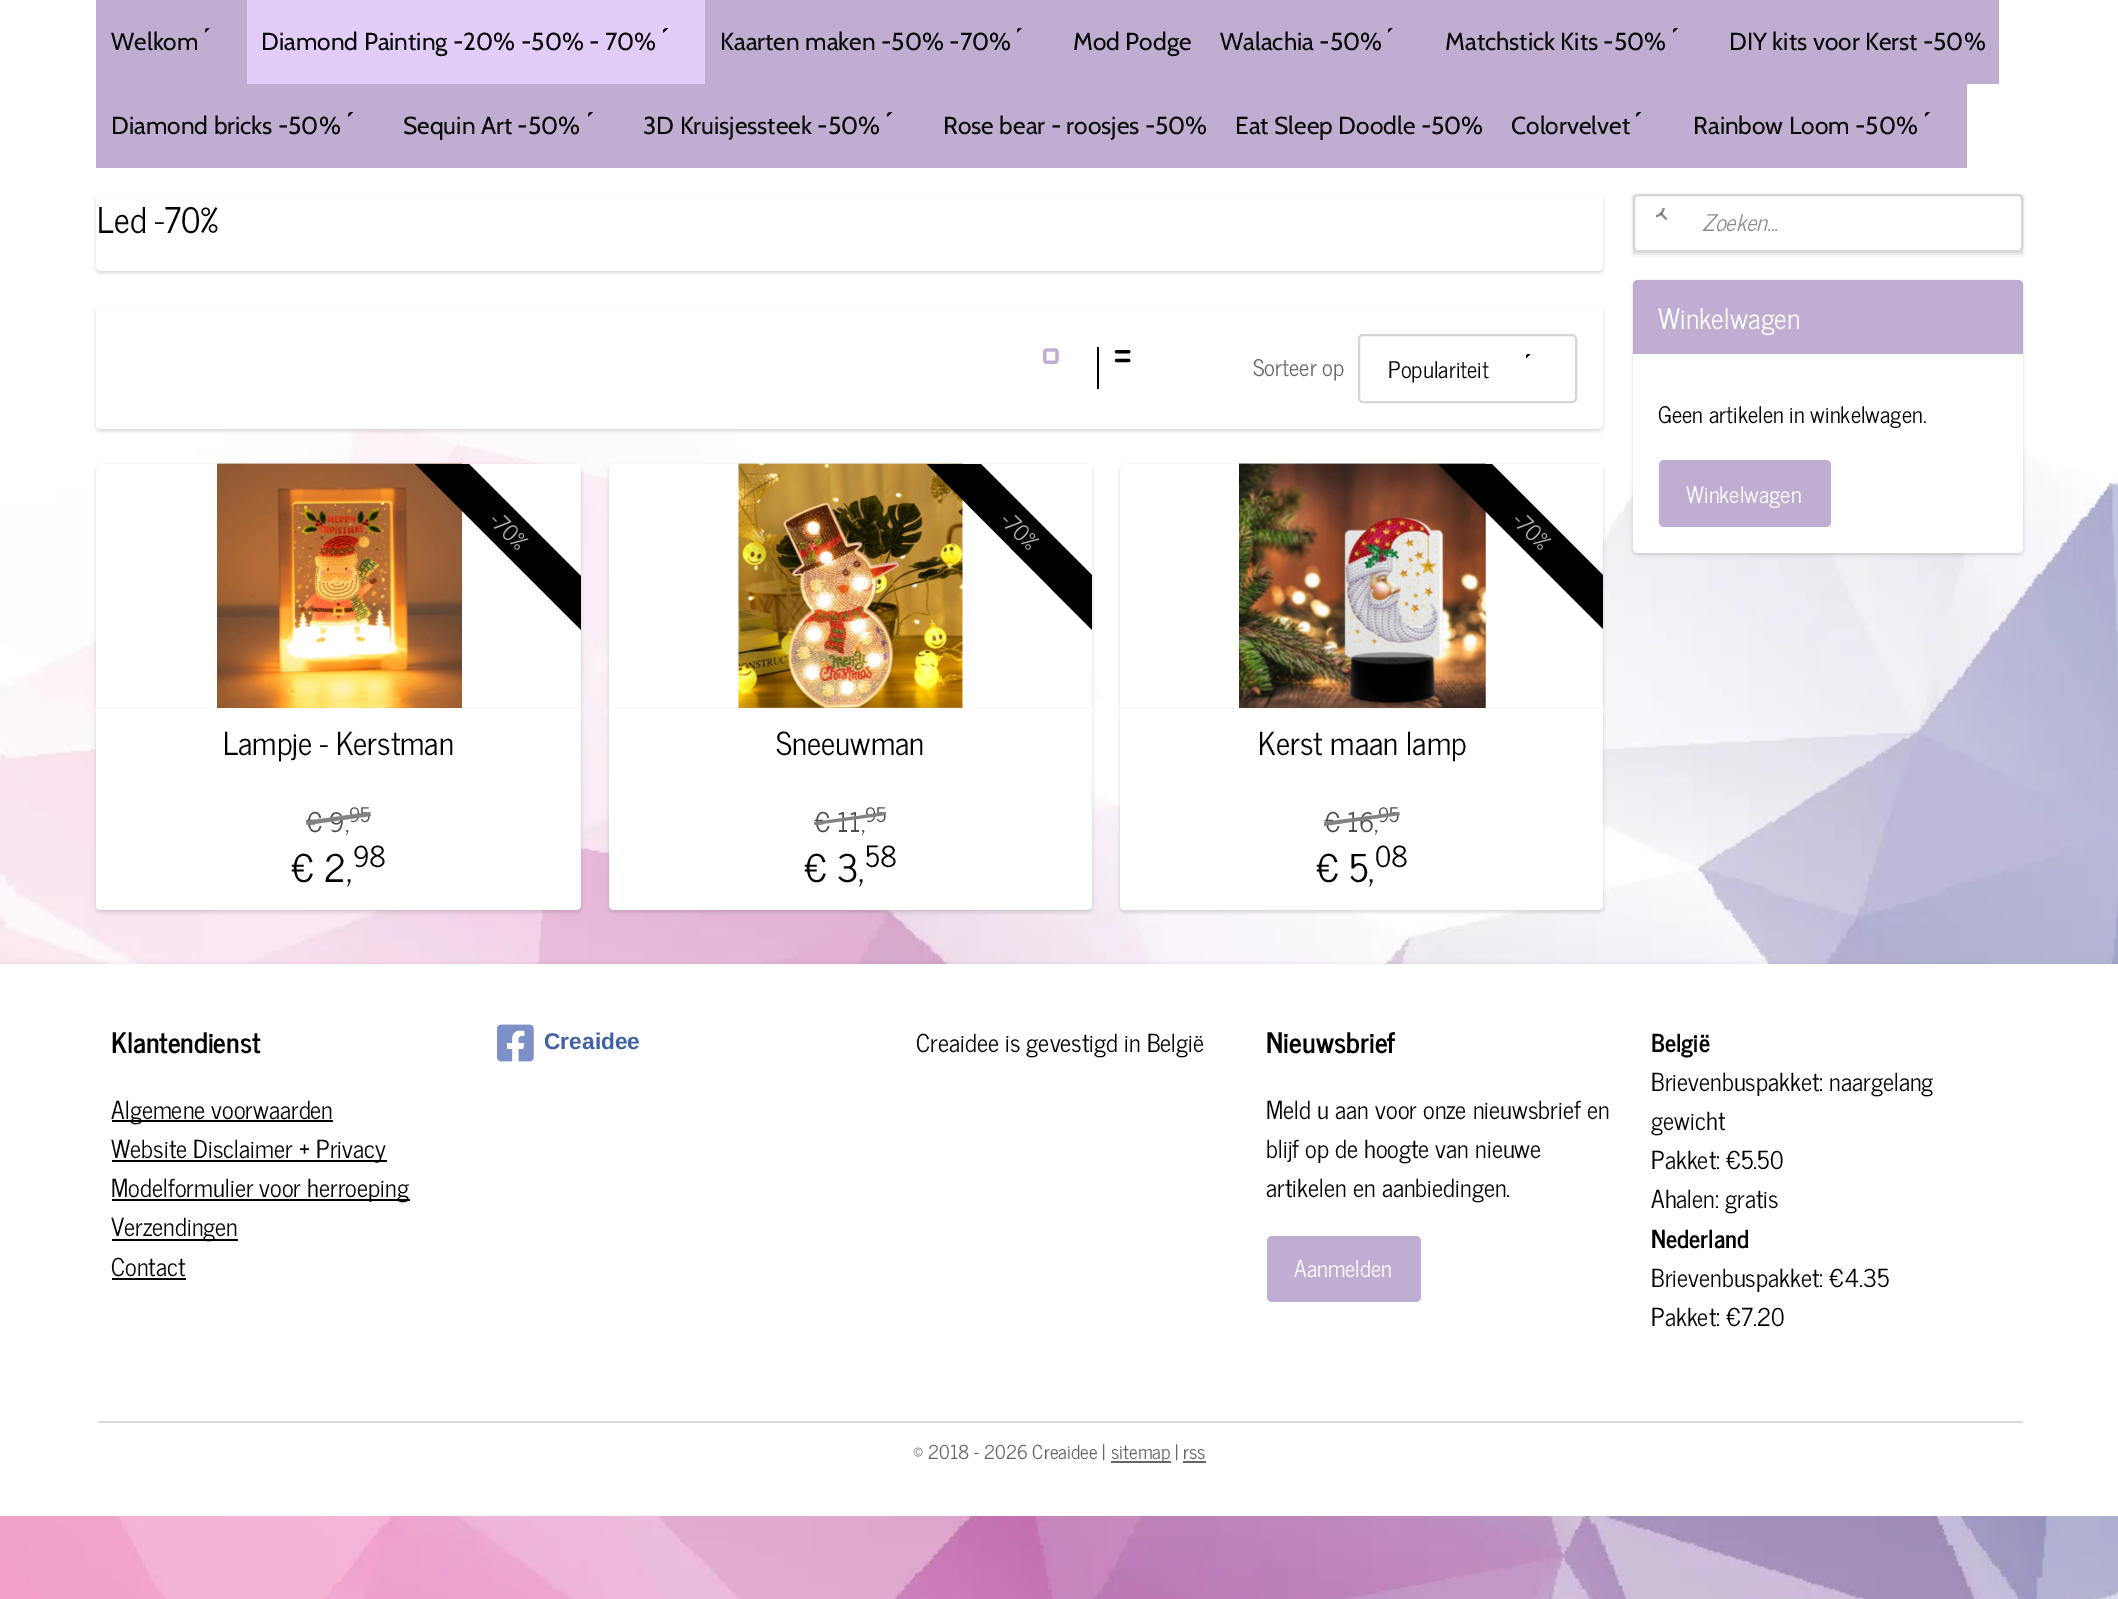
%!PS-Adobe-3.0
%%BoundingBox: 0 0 2118 1599
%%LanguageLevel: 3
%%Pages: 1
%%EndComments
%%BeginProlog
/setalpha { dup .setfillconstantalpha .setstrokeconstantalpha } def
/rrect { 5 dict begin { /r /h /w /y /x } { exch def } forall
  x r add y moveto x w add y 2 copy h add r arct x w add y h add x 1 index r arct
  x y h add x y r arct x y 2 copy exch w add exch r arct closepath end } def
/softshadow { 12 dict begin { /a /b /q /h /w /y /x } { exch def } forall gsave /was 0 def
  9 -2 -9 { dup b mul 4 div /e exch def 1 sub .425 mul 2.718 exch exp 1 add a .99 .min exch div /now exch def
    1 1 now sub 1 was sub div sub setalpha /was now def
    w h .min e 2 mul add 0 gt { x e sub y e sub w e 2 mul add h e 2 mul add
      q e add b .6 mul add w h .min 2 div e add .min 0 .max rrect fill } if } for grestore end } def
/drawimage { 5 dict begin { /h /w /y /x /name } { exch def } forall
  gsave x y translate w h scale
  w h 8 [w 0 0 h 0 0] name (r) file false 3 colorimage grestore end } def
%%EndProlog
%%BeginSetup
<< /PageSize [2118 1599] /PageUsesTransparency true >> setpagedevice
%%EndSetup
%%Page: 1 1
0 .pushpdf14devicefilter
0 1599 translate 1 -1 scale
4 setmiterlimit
1 setgray
0 0 2118 1599 rectfill
0.749 0.682 0.824 setrgbcolor
96 0 151 84 rectfill
(images/1.raw) 205 28 5 5 drawimage
0.882 0.804 0.969 setrgbcolor
247 0 458 84 rectfill
(images/2.raw) 663 28 6 5 drawimage
0.749 0.682 0.824 setrgbcolor
705 0 725 84 rectfill
(images/1.raw) 1017 28 5 5 drawimage
(images/1.raw) 1388 28 5 5 drawimage
1430 0 569 84 rectfill
(images/3.raw) 1673 28 5 5 drawimage
96 84 833 84 rectfill
(images/4.raw) 348 112 6 5 drawimage
(images/3.raw) 588 112 5 5 drawimage
(images/4.raw) 887 112 6 5 drawimage
929 84 1038 84 rectfill
(images/4.raw) 1636 112 6 5 drawimage
(images/3.raw) 1925 112 5 5 drawimage
0 setgray
96 196 1507 77 5 2 0.15 softshadow
1 setgray
96 194 1507 77 5 rrect fill
(images/12.raw) 0 329 2118 1270 drawimage
0 setgray
96 308 1507 123 5 2 0.15 softshadow
1 setgray
96 306 1507 123 5 rrect fill
(images/5.raw) 1043 348 16 16 drawimage
0 setgray
1097 347 2 42 rectfill
(images/6.raw) 1114 350 17 13 drawimage
0.839 setgray
2 setlinewidth
1359 335 217 67 4 rrect stroke
(images/7.raw) 1526 354 5 5 drawimage
0 setgray
96 466 485 245 5 2 0.15 softshadow
1 setgray
newpath 101 464 moveto 576 464 lineto 579 464 581 466 581 469 curveto 581 709 lineto 96 709 lineto 96 469 lineto 96 466 98 464 101 464 curveto closepath fill
(images/8.raw) 217 463 245 245 drawimage
0 setgray
newpath 581 630 moveto 415 464 lineto 469 464 lineto 581 576 lineto closepath fill
96 711 485 201 5 2 0.15 softshadow
1 setgray
newpath 96 709 moveto 581 709 lineto 581 905 lineto 581 908 579 910 576 910 curveto 101 910 lineto 98 910 96 908 96 905 curveto closepath fill
0 setgray
609 466 483 245 5 2 0.15 softshadow
1 setgray
newpath 614 464 moveto 1087 464 lineto 1090 464 1092 466 1092 469 curveto 1092 709 lineto 609 709 lineto 609 469 lineto 609 466 611 464 614 464 curveto closepath fill
(images/9.raw) 738 463 225 245 drawimage
0 setgray
newpath 1092 630 moveto 927 464 lineto 981 464 lineto 1092 575 lineto closepath fill
609 711 483 201 5 2 0.15 softshadow
1 setgray
newpath 609 709 moveto 1092 709 lineto 1092 905 lineto 1092 908 1090 910 1087 910 curveto 614 910 lineto 611 910 609 908 609 905 curveto closepath fill
0 setgray
1120 466 483 245 5 2 0.15 softshadow
1 setgray
newpath 1125 464 moveto 1598 464 lineto 1601 464 1603 466 1603 469 curveto 1603 709 lineto 1120 709 lineto 1120 469 lineto 1120 466 1122 464 1125 464 curveto closepath fill
(images/10.raw) 1239 463 247 245 drawimage
0 setgray
newpath 1603 629 moveto 1438 464 lineto 1492 464 lineto 1603 575 lineto closepath fill
1120 711 483 201 5 2 0.15 softshadow
1 setgray
newpath 1120 709 moveto 1603 709 lineto 1603 905 lineto 1603 908 1601 910 1598 910 curveto 1125 910 lineto 1122 910 1120 908 1120 905 curveto closepath fill
0 setgray
1633 196 390 58 0 2 0.15 softshadow
1 setgray
1634 195 388 56 4 rrect gsave fill grestore
0.827 0.835 0.851 setrgbcolor
stroke
(images/11.raw) 1656 208 12 12 drawimage
0 setgray
1633 282 390 273 5 2 0.15 softshadow
1 setgray
1633 280 390 273 5 rrect fill
0.749 0.682 0.824 setrgbcolor
newpath 1638 280 moveto 2018 280 lineto 2021 280 2023 282 2023 285 curveto 2023 354 lineto 1633 354 lineto 1633 285 lineto 1633 282 1635 280 1638 280 curveto closepath fill
1659 460 172 67 5 rrect fill
0 setgray
0 963 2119 456 0 2 0.05 softshadow
1 setgray
0 964 2118 552 rectfill
0 setgray
112 1120 221 2 rectfill
112 1160 275 2 rectfill
112 1199 298 2 rectfill
112 1239 126 2 rectfill
112 1278 74 2 rectfill
(images/13.raw) 497 1024 37 38 drawimage
0.749 0.682 0.824 setrgbcolor
1267 1236 154 66 5 rrect fill
0.851 setgray
98 1421 1925 2 rectfill
0.4 setgray
1111 1461 60 2 rectfill
1183 1461 23 2 rectfill
/Cabin-Regular [24.5 0 0 -24.5 0 0] selectfont
0.031 setgray
111 50 moveto (Welkom) show
261 50 moveto (Diamond Painting -20% -50% - 70%) show
720 50 moveto (Kaarten maken -50% -70%) show
1073 50 moveto (Mod Podge) show
1220 50 moveto (Walachia -50%) show
1445 50 moveto (Matchstick Kits -50%) show
1729 50 moveto (DIY kits voor Kerst -50%) show
111 134 moveto (Diamond bricks -50%) show
403 134 moveto (Sequin Art -50%) show
643 134 moveto (3D Kruisjessteek -50%) show
943 134 moveto (Rose bear - roosjes -50%) show
1235 134 moveto (Eat Sleep Doodle -50%) show
1511 134 moveto (Colorvelvet) show
1693 134 moveto (Rainbow Loom -50%) show
/NewsCycle-Regular [35 0 0 -35 0 0] selectfont
0 setgray
97 233 moveto (Led -70%) show
/NewsCycle-Regular [22.75 0 0 -22.75 0 0] selectfont
0.4 setgray
1253 376 moveto (Sorteer op) show
0 setgray
1388 378 moveto (Populariteit) show
0.698 0.686 0.675 setrgbcolor
gsave 488 522 translate 45 rotate 0 0 moveto (-70%) show grestore
/NewsCycle-Regular [31.5 0 0 -31.5 0 0] selectfont
0 setgray
223 755 moveto (Lampje - Kerstman) show
/NewsCycle-Regular [27 0 0 -27 0 0] selectfont
0.302 setgray
306 832 moveto (€ 9,) show
/NewsCycle-Regular [20 0 0 -20 0 0] selectfont
349 822 moveto (95) show
0.51 setgray
newpath 306 821 moveto 370 812 lineto 371 816 lineto 307 825 lineto closepath fill
/NewsCycle-Regular [38 0 0 -38 0 0] selectfont
0 setgray
291 882 moveto (€ 2,) show
/NewsCycle-Regular [29 0 0 -29 0 0] selectfont
353 867 moveto (98) show
/NewsCycle-Regular [22.75 0 0 -22.75 0 0] selectfont
0.698 0.686 0.675 setrgbcolor
gsave 999 522 translate 45 rotate 0 0 moveto (-70%) show grestore
/NewsCycle-Regular [31.5 0 0 -31.5 0 0] selectfont
0 setgray
776 755 moveto (Sneeuwman) show
/NewsCycle-Regular [27 0 0 -27 0 0] selectfont
0.302 setgray
814 832 moveto (€ 11,) show
/NewsCycle-Regular [20 0 0 -20 0 0] selectfont
865 822 moveto (95) show
0.51 setgray
newpath 814 822 moveto 886 812 lineto 886 815 lineto 815 825 lineto closepath fill
/NewsCycle-Regular [38 0 0 -38 0 0] selectfont
0 setgray
804 882 moveto (€ 3,) show
/NewsCycle-Regular [29 0 0 -29 0 0] selectfont
865 867 moveto (58) show
/NewsCycle-Regular [22.75 0 0 -22.75 0 0] selectfont
0.698 0.686 0.675 setrgbcolor
gsave 1511 522 translate 45 rotate 0 0 moveto (-70%) show grestore
/NewsCycle-Regular [31.5 0 0 -31.5 0 0] selectfont
0 setgray
1258 755 moveto (Kerst maan lamp) show
/NewsCycle-Regular [27 0 0 -27 0 0] selectfont
0.302 setgray
1324 832 moveto (€ 16,) show
/NewsCycle-Regular [20 0 0 -20 0 0] selectfont
1378 822 moveto (95) show
0.51 setgray
newpath 1324 822 moveto 1399 812 lineto 1400 815 lineto 1324 826 lineto closepath fill
/NewsCycle-Regular [38 0 0 -38 0 0] selectfont
0 setgray
1316 882 moveto (€ 5,) show
/NewsCycle-Regular [29 0 0 -29 0 0] selectfont
1375 867 moveto (08) show
/NewsCycle-Italic [22.75 0 0 -22.75 0 0] selectfont
0.537 0.549 0.569 setrgbcolor
1702 231 moveto (Zoeken...) show
/NewsCycle-Regular [28 0 0 -28 0 0] selectfont
1 setgray
1658 329 moveto (Winkelwagen) show
/NewsCycle-Regular [22.75 0 0 -22.75 0 0] selectfont
0 setgray
1658 423 moveto (Geen artikelen in winkelwagen.) show
1 setgray
1686 503 moveto (Winkelwagen) show
/NewsCycle-Bold [28 0 0 -28 0 0] selectfont
0 setgray
111 1053 moveto (Klantendienst) show
/NewsCycle-Regular [24.5 0 0 -24.5 0 0] selectfont
111 1119 moveto (Algemene voorwaarden) show
111 1158 moveto (Website Disclaimer + Privacy) show
111 1197 moveto (Modelformulier voor herroeping) show
111 1236 moveto (Verzendingen) show
111 1276 moveto (Contact) show
/LiberationSans-Bold [22.75 0 0 -22.75 0 0] selectfont
0.251 0.384 0.639 setrgbcolor
544 1049 moveto (Creaidee) show
/NewsCycle-Regular [24.5 0 0 -24.5 0 0] selectfont
0 setgray
916 1052 moveto (Creaidee is gevestigd in België) show
/NewsCycle-Bold [28 0 0 -28 0 0] selectfont
1266 1053 moveto (Nieuwsbrief) show
/NewsCycle-Regular [24.5 0 0 -24.5 0 0] selectfont
1266 1119 moveto (Meld u aan voor onze nieuwsbrief en) show
1266 1158 moveto (blijf op de hoogte van nieuwe) show
1266 1197 moveto (artikelen en aanbiedingen.) show
/NewsCycle-Regular [22.75 0 0 -22.75 0 0] selectfont
1 setgray
1294 1277 moveto (Aanmelden) show
/NewsCycle-Bold [24.5 0 0 -24.5 0 0] selectfont
0 setgray
1651 1052 moveto (België) show
/NewsCycle-Regular [24.5 0 0 -24.5 0 0] selectfont
1651 1091 moveto (Brievenbuspakket: naargelang) show
1651 1130 moveto (gewicht) show
1651 1169 moveto (Pakket: €5.50) show
1651 1208 moveto (Ahalen: gratis) show
/NewsCycle-Bold [24.5 0 0 -24.5 0 0] selectfont
1651 1248 moveto (Nederland) show
/NewsCycle-Regular [24.5 0 0 -24.5 0 0] selectfont
1651 1287 moveto (Brievenbuspakket: €4.35) show
1651 1326 moveto (Pakket: €7.20) show
/NewsCycle-Regular [19.25 0 0 -19.25 0 0] selectfont
0.4 setgray
913 1459 moveto (© 2018 - 2026 Creaidee |) show
1111 1459 moveto (sitemap) show
1175 1459 moveto (| rss) show
.poppdf14devicefilter showpage
%%EOF
